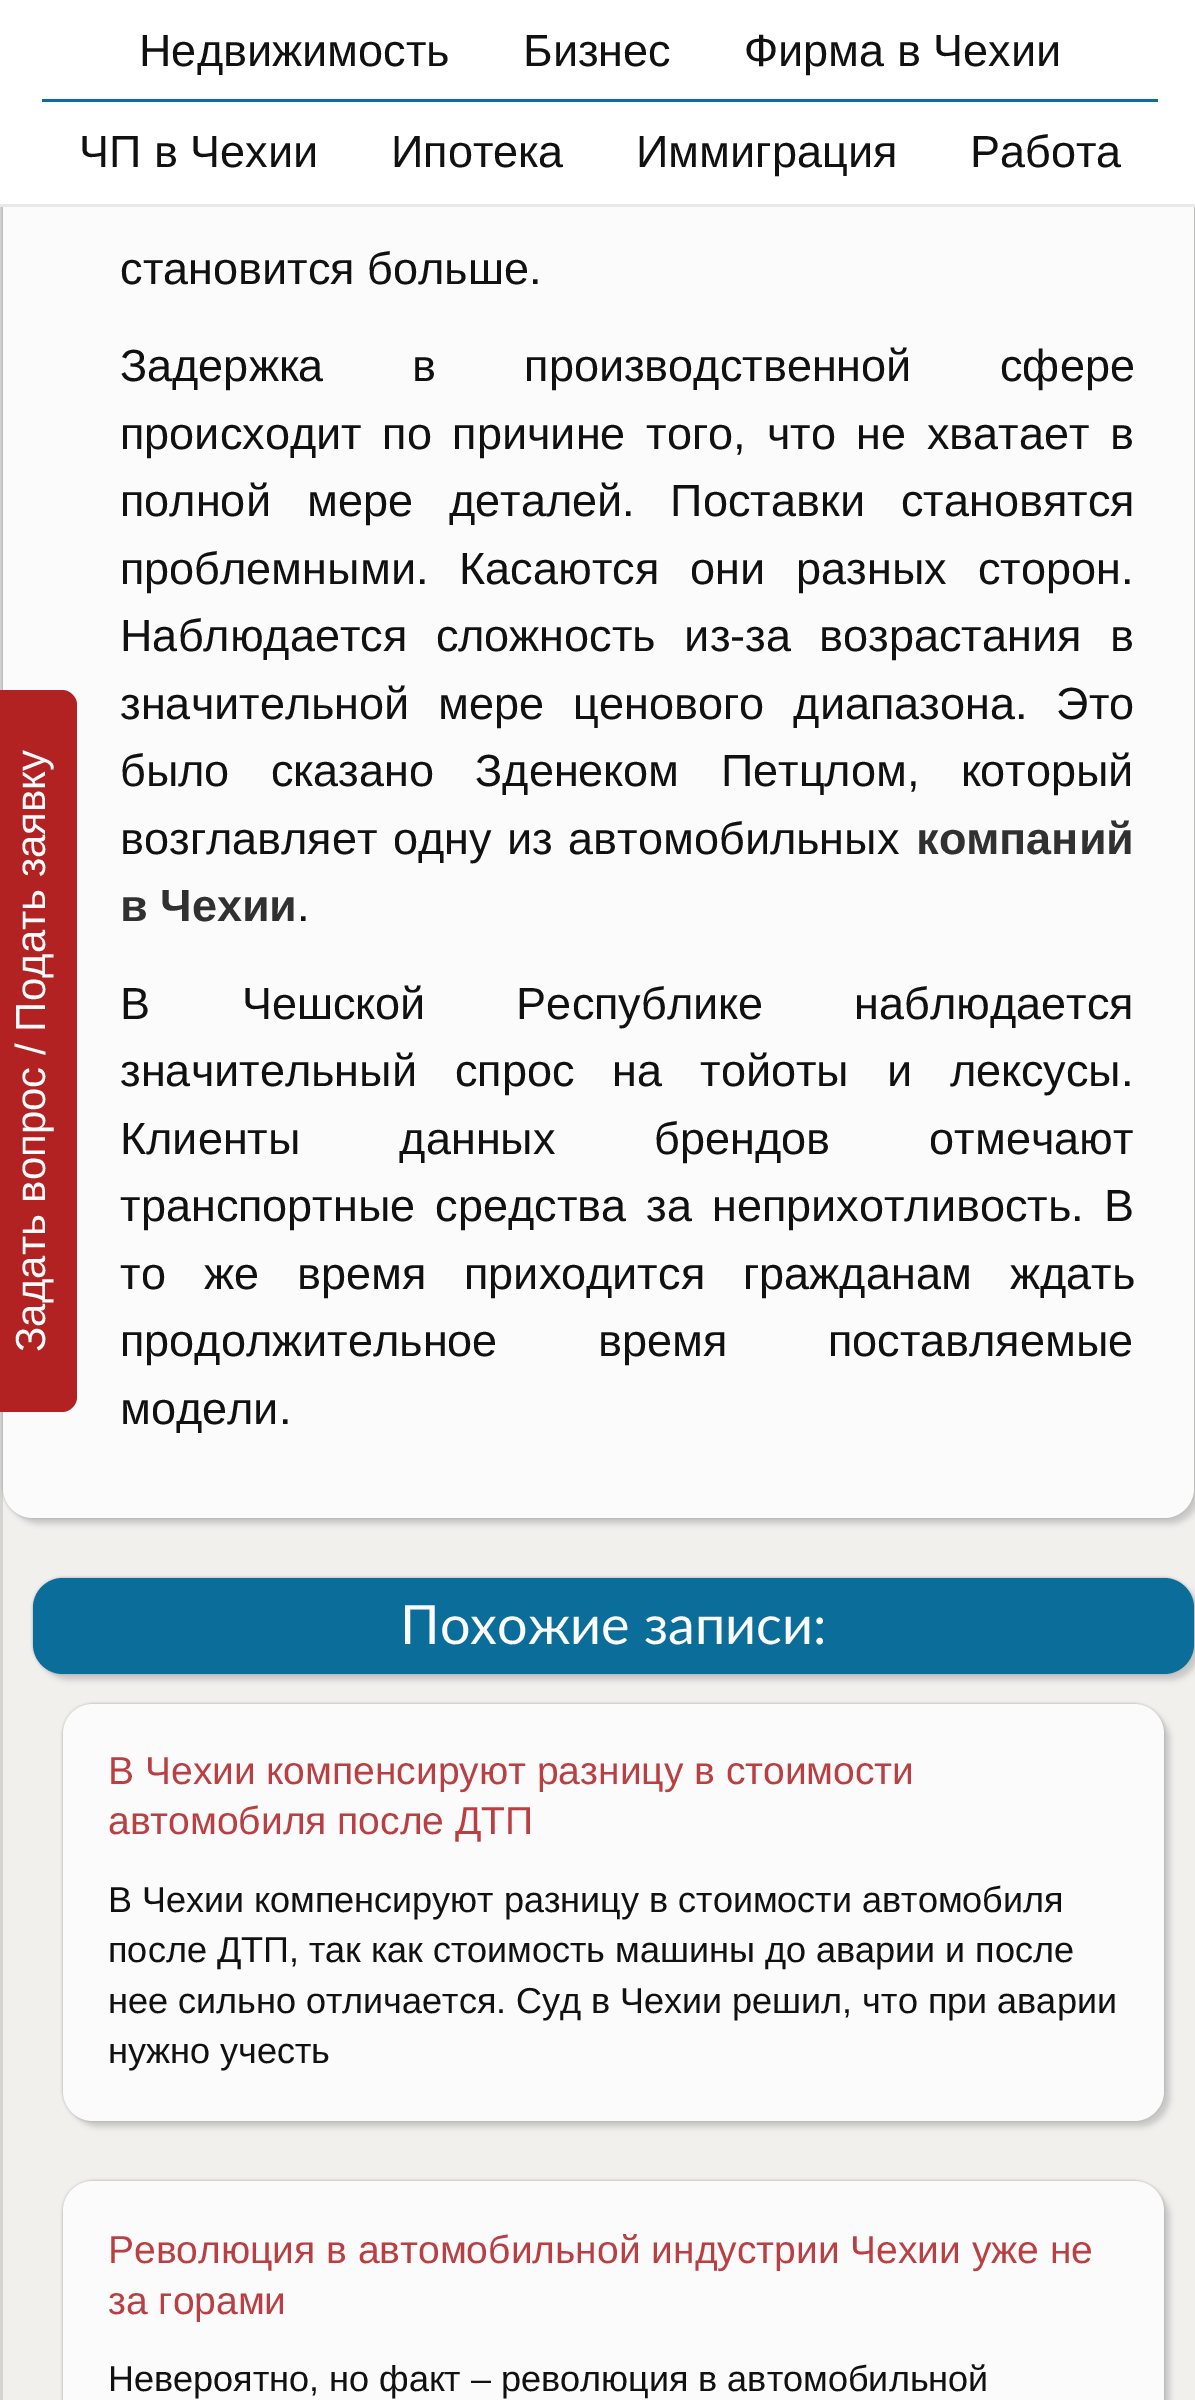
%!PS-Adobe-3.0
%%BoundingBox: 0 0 1195 2400
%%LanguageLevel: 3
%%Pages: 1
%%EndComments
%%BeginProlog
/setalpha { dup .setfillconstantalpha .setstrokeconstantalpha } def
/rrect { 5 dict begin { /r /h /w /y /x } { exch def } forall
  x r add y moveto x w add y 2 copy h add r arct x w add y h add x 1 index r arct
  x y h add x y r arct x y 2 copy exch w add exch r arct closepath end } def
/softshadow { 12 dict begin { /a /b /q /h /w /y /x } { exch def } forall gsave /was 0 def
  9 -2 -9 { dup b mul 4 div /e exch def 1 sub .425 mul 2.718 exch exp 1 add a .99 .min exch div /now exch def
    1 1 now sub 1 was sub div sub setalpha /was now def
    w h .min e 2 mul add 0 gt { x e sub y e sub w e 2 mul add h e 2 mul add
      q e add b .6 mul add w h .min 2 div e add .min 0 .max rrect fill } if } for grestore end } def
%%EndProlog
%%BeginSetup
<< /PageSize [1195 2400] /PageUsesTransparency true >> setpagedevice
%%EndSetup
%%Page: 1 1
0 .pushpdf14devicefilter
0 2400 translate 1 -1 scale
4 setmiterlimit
0.949 0.941 0.929 setrgbcolor
0 0 1195 2400 rectfill
0.78 setgray
9 -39 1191 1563 30 3 1 softshadow
0.655 setgray
3 -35 1191 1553 30 1.5 1 softshadow
0.984 setgray
3 -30 1191 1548 30 rrect fill
1 setgray
0 0 1195 204 rectfill
0.914 setgray
0 204 1195 3 rectfill
0.043 0.431 0.604 setrgbcolor
42 99 1116 3 rectfill
0.23 setalpha
0.467 setgray
0 207 3 2193 rectfill
1 setalpha
0.698 0.133 0.133 setrgbcolor
newpath -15 1412 moveto -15 690 lineto 62 690 lineto 70 690 77 697 77 705 curveto 77 1397 lineto 77 1405 70 1412 62 1412 curveto closepath fill
0.78 setgray
39 1584 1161 96 30 3 1 softshadow
0.655 setgray
33 1578 1161 96 30 1.5 1 softshadow
0.043 0.431 0.604 setrgbcolor
33 1578 1161 96 30 rrect fill
0.78 setgray
69 1710 1101 417 30 3 1 softshadow
0.655 setgray
63 1704 1101 417 30 1.5 1 softshadow
0.984 setgray
63 1704 1101 417 30 rrect fill
0.78 setgray
69 2187 1101 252 30 3 1 softshadow
0.655 setgray
63 2181 1101 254 30 1.5 1 softshadow
0.984 setgray
63 2181 1101 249 30 rrect fill
/LiberationSans-Regular [45 0 0 -45 0 0] selectfont
0.067 setgray
139 66 moveto (Недвижимость) show
523 66 moveto (Бизнес) show
744 66 moveto (Фирма в Чехии) show
79 167 moveto (ЧП в Чехии) show
391 167 moveto (Ипотека) show
636 167 moveto (Иммиграция) show
970 167 moveto (Работа) show
/LiberationSans-Regular [42 0 0 -42 0 0] selectfont
0.984 setgray
gsave 45 1352 translate -90 rotate 0 0 moveto (Задать вопрос / Подать заявку) show grestore
/LiberationSans-Regular [45 0 0 -45 0 0] selectfont
0.067 setgray
120 284 moveto (становится больше.) show
120 381 moveto 76 0 32 (Задержка в производственной сфере) widthshow
120 449 moveto 8.25 0 32 (происходит по причине того, что не хватает в) widthshow
120 516 moveto 23.5 0 32 (полной мере деталей. Поставки становятся) widthshow
120 584 moveto 18.5 0 32 (проблемными. Касаются они разных сторон.) widthshow
120 651 moveto 16 0 32 (Наблюдается сложность из-за возрастания в) widthshow
120 719 moveto 16.5 0 32 (значительной мере ценового диапазона. Это) widthshow
120 786 moveto 29 0 32 (было сказано Зденеком Петцлом, который) widthshow
120 854 moveto 3 0 32 (возглавляет одну из автомобильных) widthshow
/LiberationSans-Bold [45 0 0 -45 0 0] selectfont
0.192 setgray
916 854 moveto (компаний) show
120 921 moveto (в Чехии) show
/LiberationSans-Regular [45 0 0 -45 0 0] selectfont
0.067 setgray
297 921 moveto (.) show
120 1019 moveto 79 0 32 (В Чешской Республике наблюдается) widthshow
120 1086 moveto 25.5 0 32 (значительный спрос на тойоты и лексусы.) widthshow
120 1154 moveto 86.5 0 32 (Клиенты данных брендов отмечают) widthshow
120 1221 moveto 7.5 0 32 (транспортные средства за неприхотливость. В) widthshow
120 1289 moveto 25.5 0 32 (то же время приходится гражданам ждать) widthshow
120 1356 moveto 88 0 32 (продолжительное время поставляемые) widthshow
120 1424 moveto (модели.) show
/Lato-Regular [54 0 0 -54 0 0] selectfont
0.984 setgray
400 1644 moveto (Похожие записи:) show
/LiberationSans-Regular [39 0 0 -39 0 0] selectfont
0.729 0.247 0.259 setrgbcolor
108 1784 moveto (В Чехии компенсируют разницу в стоимости) show
108 1834 moveto (автомобиля после ДТП) show
/LiberationSans-Regular [36 0 0 -36 0 0] selectfont
0.067 setgray
108 1912 moveto (В Чехии компенсируют разницу в стоимости автомобиля) show
108 1962 moveto (после ДТП, так как стоимость машины до аварии и после) show
108 2013 moveto (нее сильно отличается. Суд в Чехии решил, что при аварии) show
108 2063 moveto (нужно учесть) show
/LiberationSans-Regular [39 0 0 -39 0 0] selectfont
0.729 0.247 0.259 setrgbcolor
108 2263 moveto (Революция в автомобильной индустрии Чехии уже не) show
108 2314 moveto (за горами) show
/LiberationSans-Regular [36 0 0 -36 0 0] selectfont
0.067 setgray
108 2391 moveto (Невероятно, но факт – революция в автомобильной) show
.poppdf14devicefilter showpage
%%EOF
